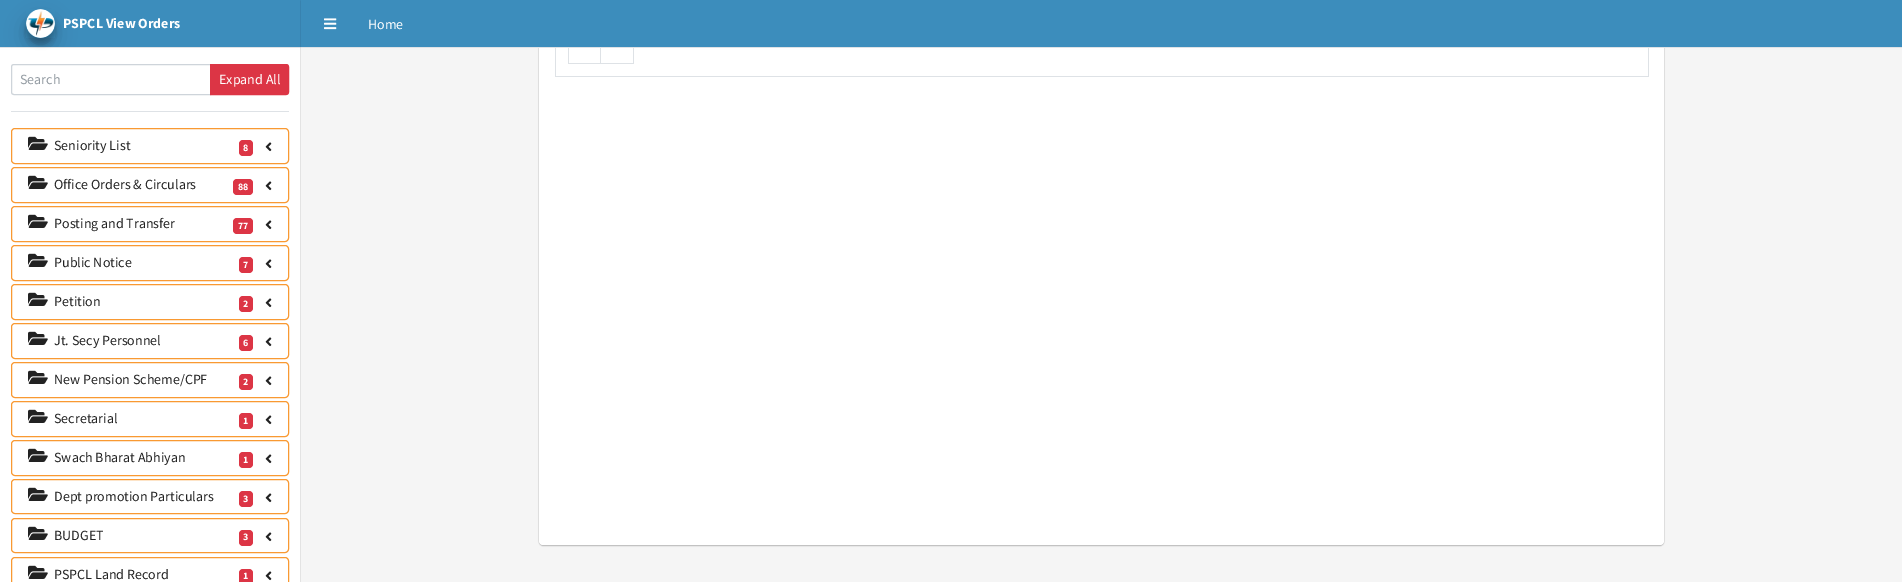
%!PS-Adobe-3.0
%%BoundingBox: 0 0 1902 582
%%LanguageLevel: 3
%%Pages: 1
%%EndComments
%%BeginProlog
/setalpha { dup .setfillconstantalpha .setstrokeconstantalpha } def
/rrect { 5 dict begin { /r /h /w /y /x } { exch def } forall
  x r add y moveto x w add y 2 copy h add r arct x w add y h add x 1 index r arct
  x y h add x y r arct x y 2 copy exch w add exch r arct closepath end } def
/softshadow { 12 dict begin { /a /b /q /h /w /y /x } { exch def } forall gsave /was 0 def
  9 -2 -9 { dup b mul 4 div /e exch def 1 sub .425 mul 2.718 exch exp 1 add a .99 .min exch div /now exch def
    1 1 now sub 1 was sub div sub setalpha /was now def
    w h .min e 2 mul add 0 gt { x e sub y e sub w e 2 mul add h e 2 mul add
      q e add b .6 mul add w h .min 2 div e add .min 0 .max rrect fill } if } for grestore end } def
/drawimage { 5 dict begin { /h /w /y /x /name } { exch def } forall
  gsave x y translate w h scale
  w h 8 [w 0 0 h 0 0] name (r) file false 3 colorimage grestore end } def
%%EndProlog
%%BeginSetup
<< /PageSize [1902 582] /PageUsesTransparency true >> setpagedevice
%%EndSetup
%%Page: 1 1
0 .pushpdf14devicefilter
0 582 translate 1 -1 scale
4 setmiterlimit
1 setgray
0 0 1902 582 rectfill
0.961 setgray
300 48 1602 534 rectfill
0 setgray
539 -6 1125 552 4 0.5 0.2 softshadow
539 -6 1125 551 4 0.5 0.12 softshadow
1 setgray
539 -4 1125 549 4 rrect fill
0.235 0.553 0.737 setrgbcolor
300 0 1602 47 rectfill
0.871 0.886 0.902 setrgbcolor
300 47 1602 1 rectfill
gsave
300 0 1 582 rectclip
0 setgray
0 1 300 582 0 1 0.24 softshadow
grestore
0.235 0.553 0.737 setrgbcolor
0 0 300 47 rectfill
0.871 0.886 0.902 setrgbcolor
0 47 300 1 rectfill
0 setgray
26 15 29 29 14.5 3 0.23 softshadow
0.808 0.831 0.855 setrgbcolor
newpath 14 64.5 moveto 210.5 64.5 lineto 210.5 94.5 lineto 14 94.5 lineto 12.5 94.5 11.5 93.5 11.5 92 curveto 11.5 67 lineto 11.5 65.5 12.5 64.5 14 64.5 curveto closepath stroke
gsave
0 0 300 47 rectclip
0 setgray
26 19 29 29 14.5 10 0.19 softshadow
grestore
(images/1.raw) 26 9 29 29 drawimage
0.871 0.886 0.902 setrgbcolor
11 111 278 1 rectfill
0.863 0.208 0.271 setrgbcolor
newpath 210.5 64.5 moveto 286 64.5 lineto 287.5 64.5 288.5 65.5 288.5 67 curveto 288.5 92 lineto 288.5 93.5 287.5 94.5 286 94.5 curveto 210.5 94.5 lineto closepath gsave fill grestore
stroke
0.976 0.6 0.196 setrgbcolor
11.5 128.5 277 35 3.5 rrect stroke
(images/2.raw) 28 136 20 14 drawimage
0.863 0.208 0.271 setrgbcolor
239 140 14 16 4 rrect fill
(images/3.raw) 265 142 7 10 drawimage
0.976 0.6 0.196 setrgbcolor
11.5 167.5 277 35 3.5 rrect stroke
(images/2.raw) 28 175 20 14 drawimage
0.863 0.208 0.271 setrgbcolor
233 179 20 16 4 rrect fill
(images/3.raw) 265 181 7 10 drawimage
0.976 0.6 0.196 setrgbcolor
11.5 206.5 277 35 3.5 rrect stroke
(images/2.raw) 28 214 20 14 drawimage
0.863 0.208 0.271 setrgbcolor
233 218 20 16 4 rrect fill
(images/3.raw) 265 220 7 10 drawimage
0.976 0.6 0.196 setrgbcolor
11.5 245.5 277 35 3.5 rrect stroke
(images/2.raw) 28 253 20 14 drawimage
0.863 0.208 0.271 setrgbcolor
239 257 14 16 4 rrect fill
(images/3.raw) 265 259 7 10 drawimage
0.976 0.6 0.196 setrgbcolor
11.5 284.5 277 35 3.5 rrect stroke
(images/2.raw) 28 292 20 14 drawimage
0.863 0.208 0.271 setrgbcolor
239 296 14 16 4 rrect fill
(images/3.raw) 265 298 7 10 drawimage
0.976 0.6 0.196 setrgbcolor
11.5 323.5 277 35 3.5 rrect stroke
(images/2.raw) 28 331 20 14 drawimage
0.863 0.208 0.271 setrgbcolor
239 335 14 16 4 rrect fill
(images/3.raw) 265 337 7 10 drawimage
0.976 0.6 0.196 setrgbcolor
11.5 362.5 277 35 3.5 rrect stroke
(images/2.raw) 28 370 20 14 drawimage
0.863 0.208 0.271 setrgbcolor
239 374 14 16 4 rrect fill
(images/3.raw) 265 376 7 10 drawimage
0.976 0.6 0.196 setrgbcolor
11.5 401.5 277 35 3.5 rrect stroke
(images/2.raw) 28 409 20 14 drawimage
0.863 0.208 0.271 setrgbcolor
239 413 14 16 4 rrect fill
(images/3.raw) 265 415 7 10 drawimage
0.976 0.6 0.196 setrgbcolor
11.5 440.5 277 35 3.5 rrect stroke
(images/2.raw) 28 448 20 14 drawimage
0.863 0.208 0.271 setrgbcolor
239 452 14 16 4 rrect fill
(images/3.raw) 265 454 7 10 drawimage
0.976 0.6 0.196 setrgbcolor
11.5 479.5 277 34 3.5 rrect stroke
(images/2.raw) 28 487 20 14 drawimage
0.863 0.208 0.271 setrgbcolor
239 491 14 16 4 rrect fill
(images/3.raw) 265 493 7 10 drawimage
0.976 0.6 0.196 setrgbcolor
11.5 518.5 277 34 3.5 rrect stroke
(images/2.raw) 28 526 20 14 drawimage
0.863 0.208 0.271 setrgbcolor
239 530 14 16 4 rrect fill
(images/3.raw) 265 532 7 10 drawimage
0.976 0.6 0.196 setrgbcolor
11.5 557.5 277 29 3.5 rrect stroke
(images/2.raw) 28 565 20 14 drawimage
0.863 0.208 0.271 setrgbcolor
239 569 14 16 4 rrect fill
(images/3.raw) 265 571 7 10 drawimage
(images/4.raw) 555 48 1094 29 drawimage
(images/5.raw) 324 18 13 12 drawimage
/SourceSansPro-Bold [14 0 0 -14 0 0] selectfont
1 setgray
63 28 moveto (PSPCL View Orders) show
/SourceSansPro-Regular [14 0 0 -14 0 0] selectfont
0.576 0.608 0.635 setrgbcolor
20 84 moveto (Search) show
1 setgray
219 84 moveto (Expand All) show
0.133 setgray
54 150 moveto (Seniority List) show
/SourceSansPro-Bold [10 0 0 -10 0 0] selectfont
1 setgray
243 151 moveto (8) show
/SourceSansPro-Regular [14 0 0 -14 0 0] selectfont
0.133 setgray
54 189 moveto (Office Orders & Circulars) show
/SourceSansPro-Bold [10 0 0 -10 0 0] selectfont
1 setgray
238 190 moveto (88) show
/SourceSansPro-Regular [14 0 0 -14 0 0] selectfont
0.133 setgray
54 228 moveto (Posting and Transfer) show
/SourceSansPro-Bold [10 0 0 -10 0 0] selectfont
1 setgray
238 229 moveto (77) show
/SourceSansPro-Regular [14 0 0 -14 0 0] selectfont
0.133 setgray
54 267 moveto (Public Notice) show
/SourceSansPro-Bold [10 0 0 -10 0 0] selectfont
1 setgray
243 268 moveto (7) show
/SourceSansPro-Regular [14 0 0 -14 0 0] selectfont
0.133 setgray
54 306 moveto (Petition) show
/SourceSansPro-Bold [10 0 0 -10 0 0] selectfont
1 setgray
243 307 moveto (2) show
/SourceSansPro-Regular [14 0 0 -14 0 0] selectfont
0.133 setgray
54 345 moveto (Jt. Secy Personnel) show
/SourceSansPro-Bold [10 0 0 -10 0 0] selectfont
1 setgray
243 346 moveto (6) show
/SourceSansPro-Regular [14 0 0 -14 0 0] selectfont
0.133 setgray
54 384 moveto (New Pension Scheme/CPF) show
/SourceSansPro-Bold [10 0 0 -10 0 0] selectfont
1 setgray
243 385 moveto (2) show
/SourceSansPro-Regular [14 0 0 -14 0 0] selectfont
0.133 setgray
54 423 moveto (Secretarial) show
/SourceSansPro-Bold [10 0 0 -10 0 0] selectfont
1 setgray
243 424 moveto (1) show
/SourceSansPro-Regular [14 0 0 -14 0 0] selectfont
0.133 setgray
54 462 moveto (Swach Bharat Abhiyan) show
/SourceSansPro-Bold [10 0 0 -10 0 0] selectfont
1 setgray
243 463 moveto (1) show
/SourceSansPro-Regular [14 0 0 -14 0 0] selectfont
0.133 setgray
54 501 moveto (Dept promotion Particulars) show
/SourceSansPro-Bold [10 0 0 -10 0 0] selectfont
1 setgray
243 502 moveto (3) show
/SourceSansPro-Regular [14 0 0 -14 0 0] selectfont
0.133 setgray
54 540 moveto (BUDGET) show
/SourceSansPro-Bold [10 0 0 -10 0 0] selectfont
1 setgray
243 540 moveto (3) show
/SourceSansPro-Regular [14 0 0 -14 0 0] selectfont
0.133 setgray
54 579 moveto (PSPCL Land Record) show
/SourceSansPro-Bold [10 0 0 -10 0 0] selectfont
1 setgray
243 579 moveto (1) show
/SourceSansPro-Regular [14 0 0 -14 0 0] selectfont
368 29 moveto (Home) show
.poppdf14devicefilter showpage
%%EOF
